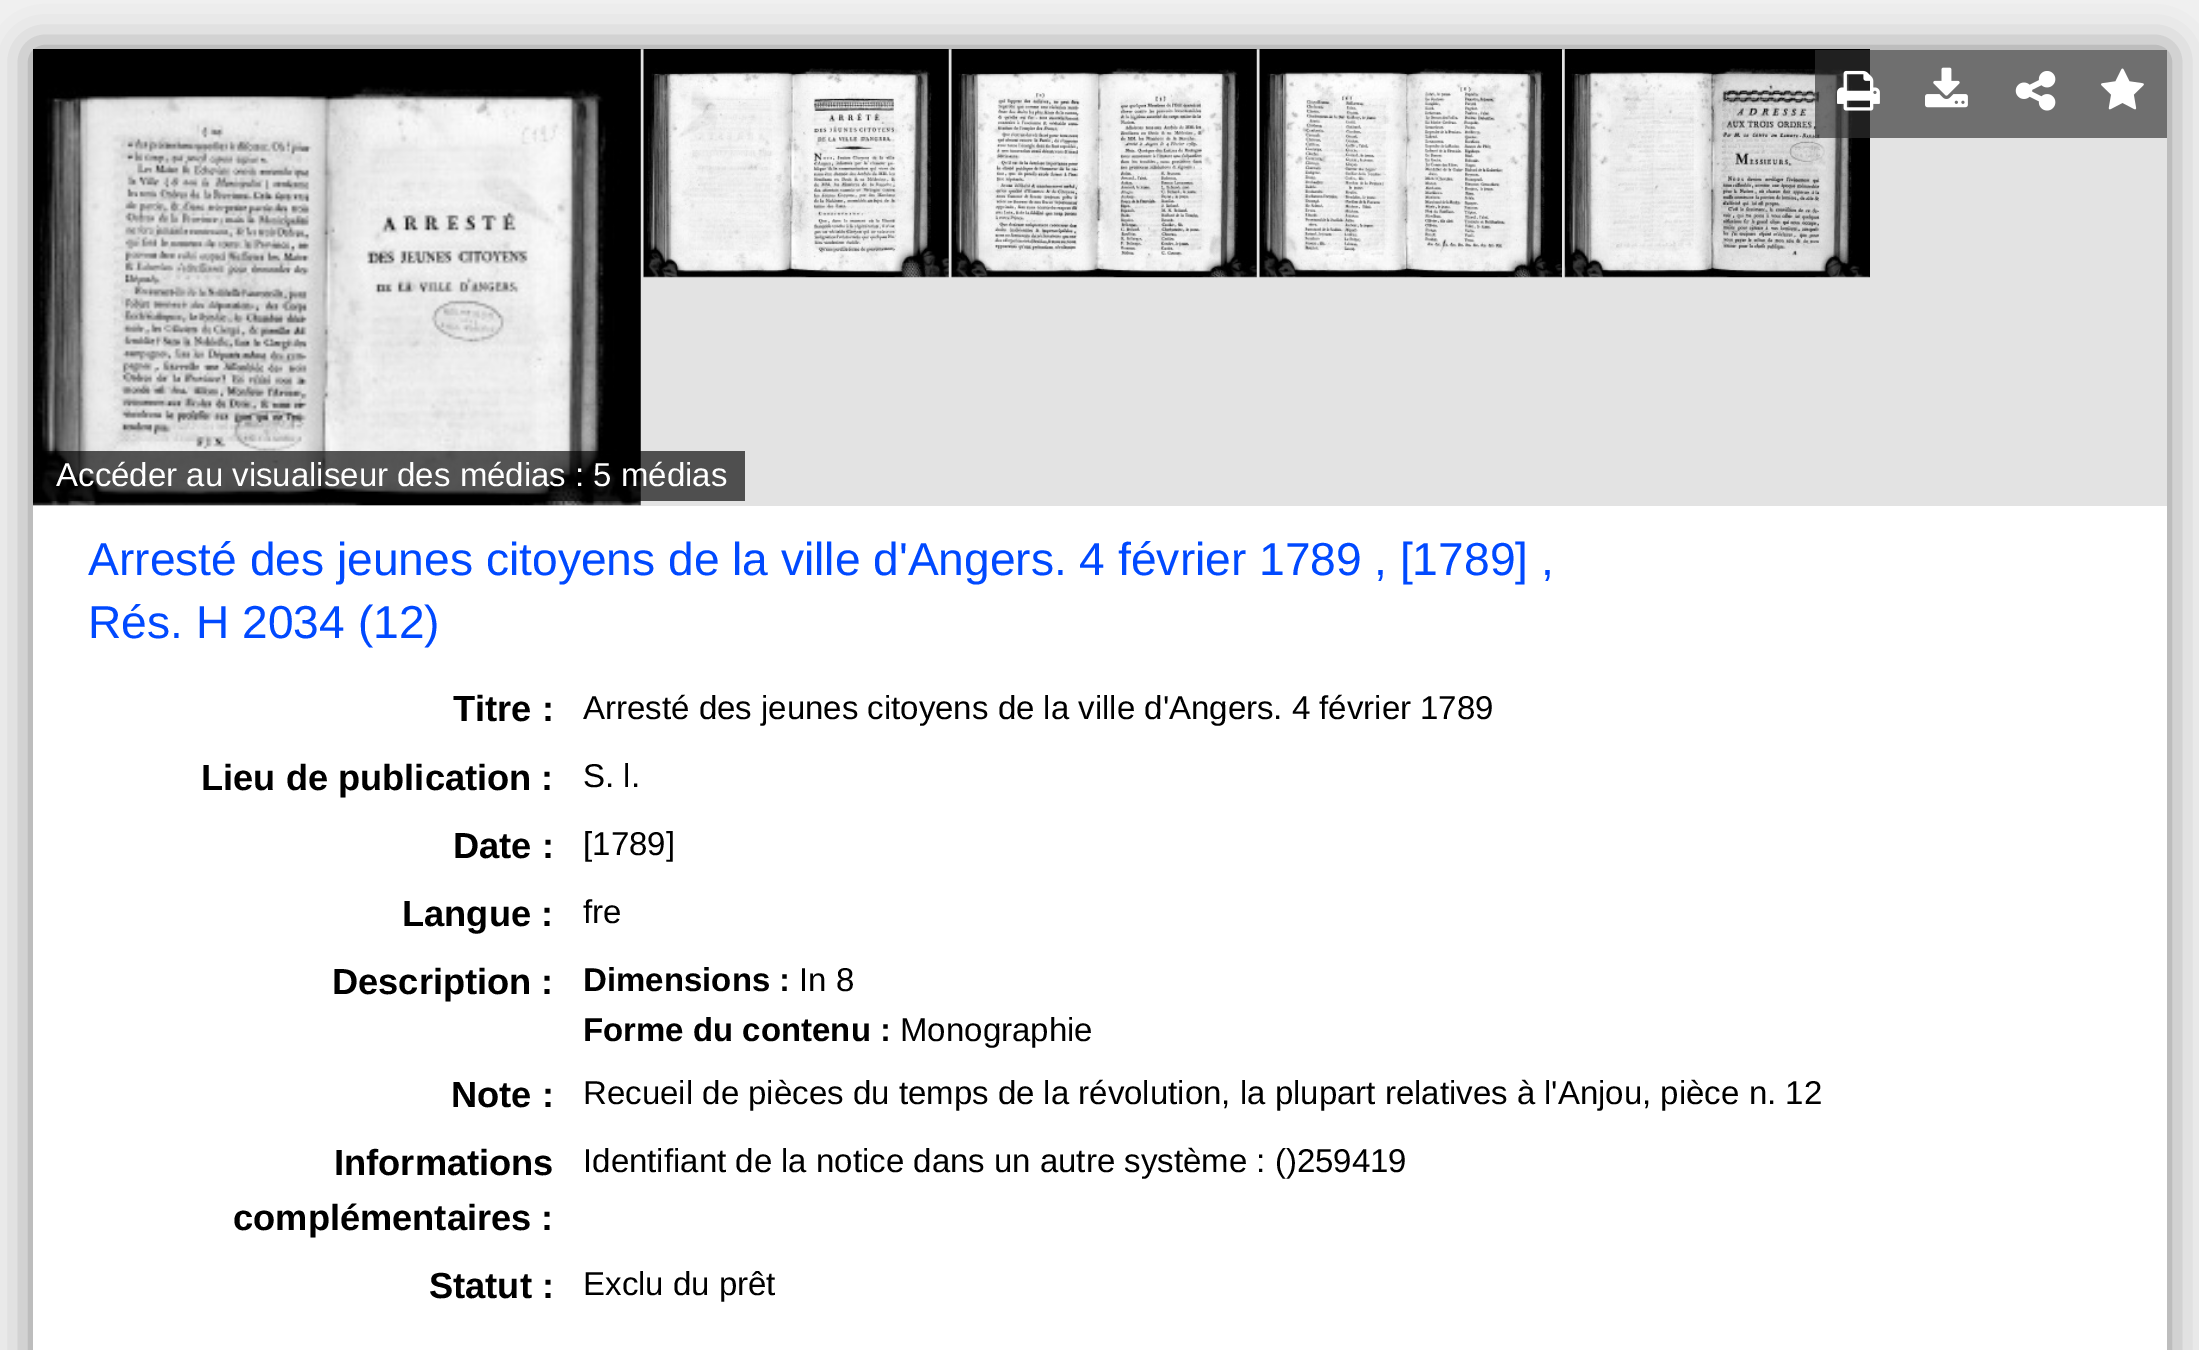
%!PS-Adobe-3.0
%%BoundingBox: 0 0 2199 1350
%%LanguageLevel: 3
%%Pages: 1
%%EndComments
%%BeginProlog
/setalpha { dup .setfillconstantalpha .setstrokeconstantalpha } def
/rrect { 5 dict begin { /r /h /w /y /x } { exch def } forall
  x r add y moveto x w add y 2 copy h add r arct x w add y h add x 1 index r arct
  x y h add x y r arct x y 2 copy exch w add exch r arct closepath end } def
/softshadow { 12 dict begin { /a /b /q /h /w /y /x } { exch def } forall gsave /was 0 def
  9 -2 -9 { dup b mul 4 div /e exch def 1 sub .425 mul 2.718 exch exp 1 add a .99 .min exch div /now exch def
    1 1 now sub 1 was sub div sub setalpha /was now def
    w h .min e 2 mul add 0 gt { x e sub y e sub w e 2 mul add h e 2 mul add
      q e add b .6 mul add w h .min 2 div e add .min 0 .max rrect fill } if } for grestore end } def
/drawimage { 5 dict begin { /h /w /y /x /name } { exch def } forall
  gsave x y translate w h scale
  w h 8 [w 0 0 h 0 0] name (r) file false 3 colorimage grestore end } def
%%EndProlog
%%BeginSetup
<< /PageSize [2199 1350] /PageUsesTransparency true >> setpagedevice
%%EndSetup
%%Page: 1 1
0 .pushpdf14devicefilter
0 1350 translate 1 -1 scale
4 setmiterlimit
0.941 setgray
0 0 2199 1350 rectfill
0.533 setgray
33 50 2134 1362 0 20.5 1 softshadow
1 setgray
33 506 2134 844 rectfill
0.89 setgray
33 50 2134 456 rectfill
(images/9.raw) 1564 49 306 229 drawimage
0.65 setalpha
0.192 setgray
1815 50 88 88 rectfill
1 setalpha
(images/1.raw) 1837 70 43 41 drawimage
0.435 setgray
1903 50 88 88 rectfill
(images/2.raw) 1925 67 43 41 drawimage
1991 50 176 88 rectfill
(images/3.raw) 2101 68 43 42 drawimage
(images/4.raw) 2015 71 41 40 drawimage
(images/5.raw) 33 49 608 457 drawimage
(images/6.raw) 643 49 306 229 drawimage
(images/7.raw) 951 49 306 229 drawimage
(images/8.raw) 1259 49 303 229 drawimage
0.65 setalpha
0 setgray
41 451 704 50 rectfill
/LiberationSans-Regular [33 0 0 -33 0 0] selectfont
1 setalpha
1 setgray
56 486 moveto (Accéder au visualiseur des médias : 5 médias) show
/LiberationSans-Regular [46.2 0 0 -46.2 0 0] selectfont
0 0.286 1 setrgbcolor
88 575 moveto -0.1 0 32 (Arresté des jeunes citoyens de la ville d'Angers. 4 février 1789) widthshow
1374 575 moveto (, [1789] ,) show
88 638 moveto (Rés. H 2034 \(12\)) show
/LiberationSans-Bold [36.25 0 0 -36.25 0 0] selectfont
0 setgray
453 721 moveto (Titre :) show
/LiberationSans-Regular [33 0 0 -33 0 0] selectfont
583 719 moveto (Arresté des jeunes citoyens de la ville d'Angers. 4 février 1789) show
/LiberationSans-Bold [36.25 0 0 -36.25 0 0] selectfont
201 790 moveto (Lieu de publication :) show
/LiberationSans-Regular [33 0 0 -33 0 0] selectfont
583 787 moveto (S. l.) show
/LiberationSans-Bold [36.25 0 0 -36.25 0 0] selectfont
453 858 moveto (Date :) show
/LiberationSans-Regular [33 0 0 -33 0 0] selectfont
583 855 moveto ([1789]) show
/LiberationSans-Bold [36.25 0 0 -36.25 0 0] selectfont
402 926 moveto (Langue :) show
/LiberationSans-Regular [33 0 0 -33 0 0] selectfont
583 923 moveto (fre) show
/LiberationSans-Bold [36.25 0 0 -36.25 0 0] selectfont
332 994 moveto (Description :) show
/LiberationSans-Bold [33 0 0 -33 0 0] selectfont
583 991 moveto (Dimensions :) show
/LiberationSans-Regular [33 0 0 -33 0 0] selectfont
799 991 moveto (In 8) show
/LiberationSans-Bold [33 0 0 -33 0 0] selectfont
583 1041 moveto (Forme du contenu :) show
/LiberationSans-Regular [33 0 0 -33 0 0] selectfont
900 1041 moveto (Monographie) show
/LiberationSans-Bold [36.25 0 0 -36.25 0 0] selectfont
451 1107 moveto (Note :) show
/LiberationSans-Regular [33 0 0 -33 0 0] selectfont
583 1104 moveto (Recueil de pièces du temps de la révolution, la plupart relatives à l'Anjou, pièce n. 12) show
/LiberationSans-Bold [36.25 0 0 -36.25 0 0] selectfont
334 1175 moveto (Informations) show
233 1230 moveto (complémentaires :) show
/LiberationSans-Regular [33 0 0 -33 0 0] selectfont
583 1172 moveto (Identifiant de la notice dans un autre système : \(\)259419) show
/LiberationSans-Bold [36.25 0 0 -36.25 0 0] selectfont
429 1298 moveto (Statut :) show
/LiberationSans-Regular [33 0 0 -33 0 0] selectfont
583 1295 moveto (Exclu du prêt) show
.poppdf14devicefilter showpage
%%EOF
